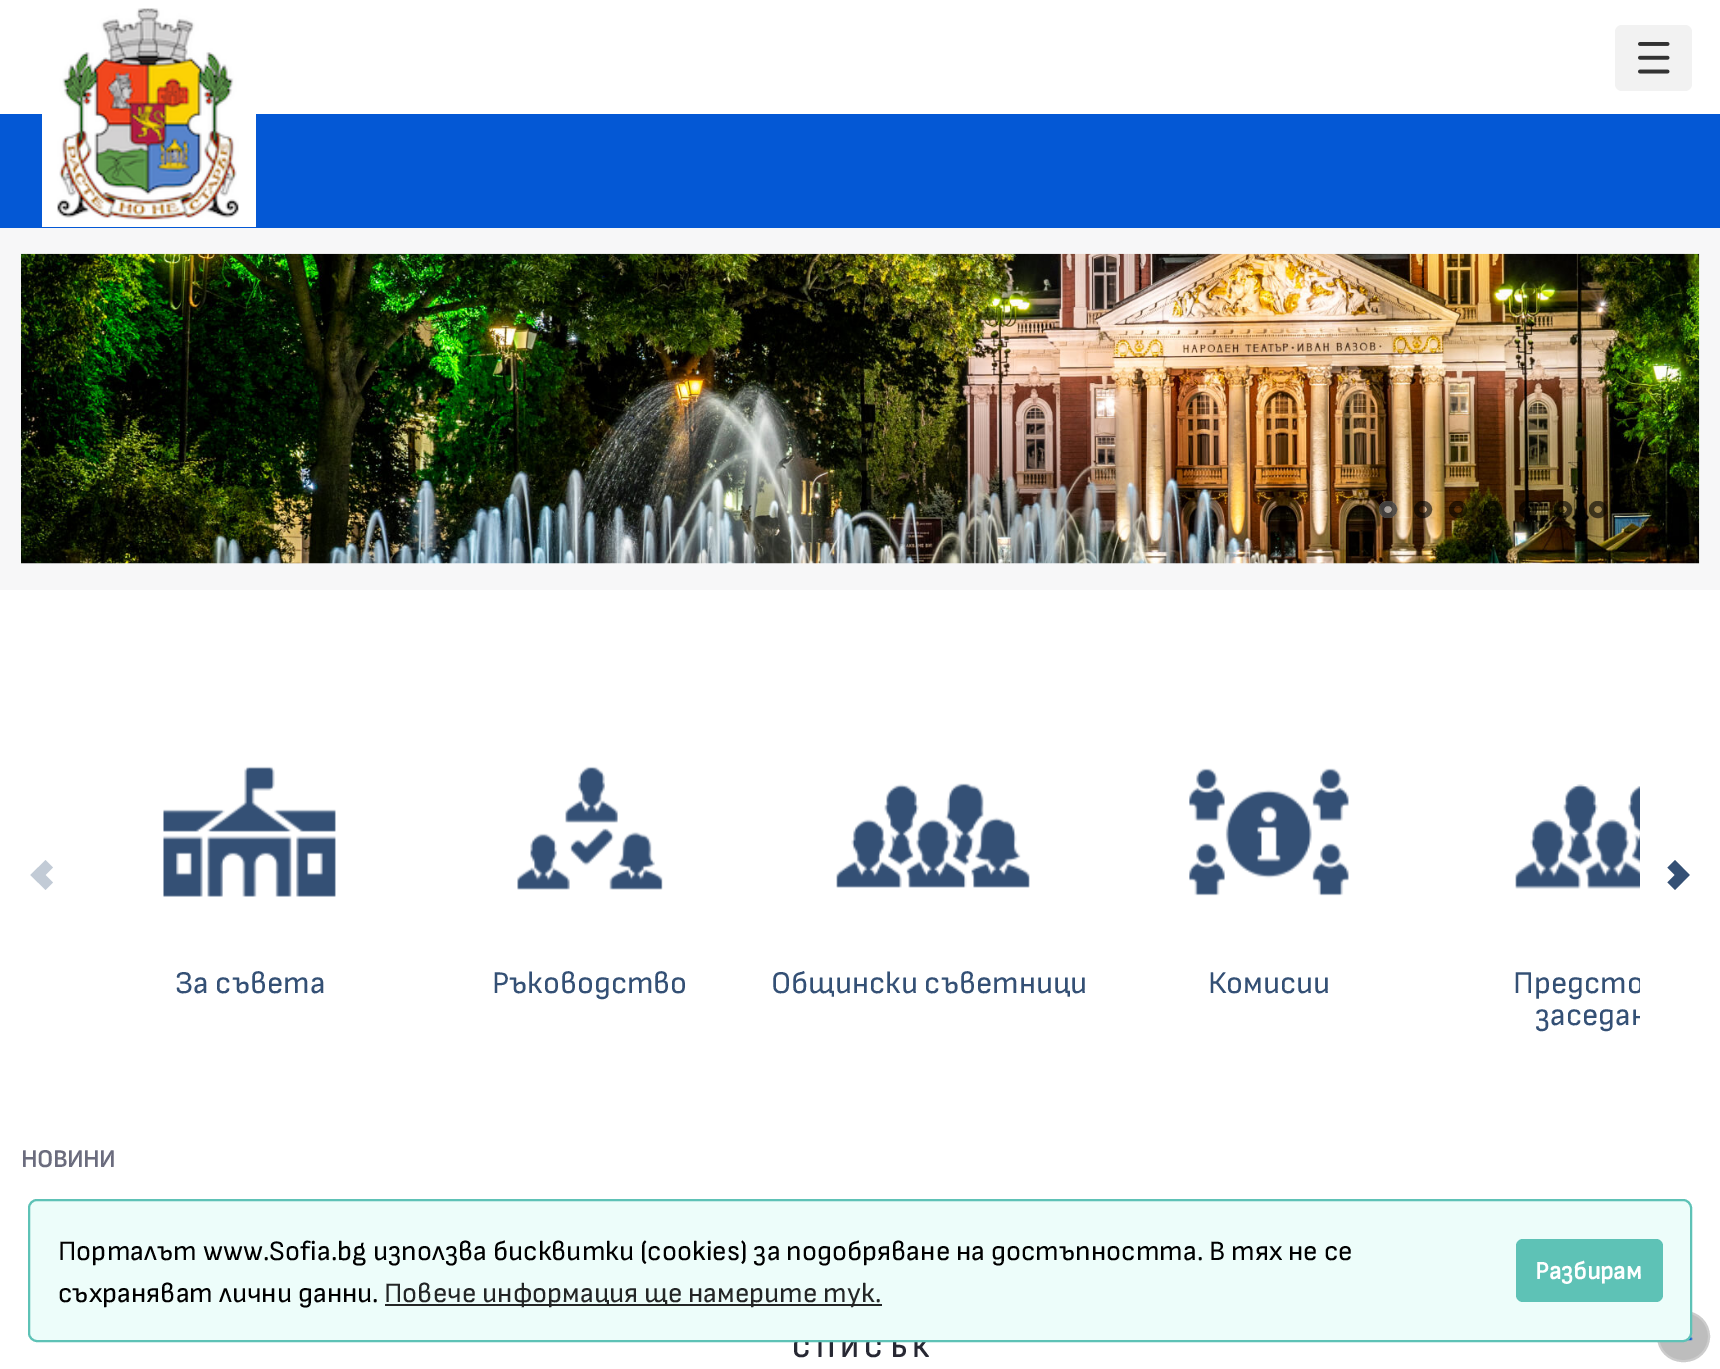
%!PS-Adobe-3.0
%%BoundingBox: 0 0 1720 1369
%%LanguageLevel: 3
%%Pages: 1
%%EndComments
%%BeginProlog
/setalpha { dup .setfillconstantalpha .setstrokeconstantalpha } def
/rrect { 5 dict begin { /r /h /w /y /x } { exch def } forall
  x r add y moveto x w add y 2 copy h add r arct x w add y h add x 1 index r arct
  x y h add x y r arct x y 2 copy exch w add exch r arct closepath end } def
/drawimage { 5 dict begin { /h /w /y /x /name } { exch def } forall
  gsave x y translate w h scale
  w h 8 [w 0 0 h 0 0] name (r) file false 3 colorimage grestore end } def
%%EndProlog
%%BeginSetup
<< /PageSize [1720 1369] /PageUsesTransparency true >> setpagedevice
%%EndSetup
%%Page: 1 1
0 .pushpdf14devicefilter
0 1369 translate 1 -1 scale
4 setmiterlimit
1 setgray
0 0 1720 1369 rectfill
0.016 0.345 0.835 setrgbcolor
0 114 1720 114 rectfill
(images/1.raw) 42 8 214 219 drawimage
0.949 setgray
1615 25 77 66 7 rrect fill
(images/2.raw) 1638 42 32 32 drawimage
0.969 0.969 0.973 setrgbcolor
0 228 1720 362 rectfill
(images/3.raw) 21 253 1679 311 drawimage
0.6 setalpha
1 setgray
1379 501 18 17 8.5 rrect fill
0 setgray
5 setlinewidth
1381.5 503.5 13 12 6 rrect stroke
1416.5 503.5 13 12 6 rrect stroke
1451.5 503.5 13 12 6 rrect stroke
1486.5 503.5 13 12 6 rrect stroke
1521.5 503.5 13 12 6 rrect stroke
1556.5 503.5 13 12 6 rrect stroke
1591.5 503.5 13 12 6 rrect stroke
1 setalpha
0.761 0.796 0.839 setrgbcolor
newpath 30.5 875 moveto 45.5 860 lineto 53 867.5 lineto 38 882.5 lineto closepath fill
newpath 30.5 875 moveto 38 867.5 lineto 53 882.5 lineto 45.5 890 lineto closepath fill
0.204 0.314 0.459 setrgbcolor
newpath 1689.5 875 moveto 1675 890 lineto 1667.5 882.5 lineto 1682 867.5 lineto closepath fill
newpath 1689.5 875 moveto 1682 882.5 lineto 1667.5 867.5 lineto 1675 860 lineto closepath fill
(images/4.raw) 163 766 173 131 drawimage
(images/5.raw) 517 766 146 124 drawimage
(images/6.raw) 836 783 194 105 drawimage
(images/7.raw) 1189 768 160 128 drawimage
(images/8.raw) 1515 784 125 105 drawimage
0.741 setgray
1658 1312 51 49 24.5 rrect gsave fill grestore
0.8 setgray
2 setlinewidth
stroke
(images/9.raw) 1687 1336 6 5 drawimage
/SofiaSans-Regular [31.5 0 0 -31.5 0 0] selectfont
0.204 0.314 0.459 setrgbcolor
175 993 moveto (За съвета) show
492 993 moveto (Ръководство) show
771 993 moveto (Общински съветници) show
1208 993 moveto (Комисии) show
gsave
81 705 1559 340 rectclip
1513 993 moveto (Предсто) show
1535 1025 moveto (заседан) show
grestore
/SofiaSans-Bold [24.5 0 0 -24.5 0 0] selectfont
0.42 0.424 0.494 setrgbcolor
21 1167 moveto (НОВИНИ) show
/SofiaSans-Bold [28 0 0 -28 0 0] selectfont
0.153 0.157 0.2 setrgbcolor
792 1357 moveto (С П И С Ъ К) show
0.929 0.992 0.98 setrgbcolor
29 1200 1662 141 8 rrect gsave fill grestore
0.369 0.761 0.714 setrgbcolor
stroke
/SofiaSans-Regular [28 0 0 -28 0 0] selectfont
0 setgray
58 1260 moveto (Порталът www.Sofia.bg използва бисквитки \(cookies\) за подобряване на достъпността. В тях не се) show
58 1302 moveto (съхраняват лични данни.) show
0.141 0.149 0.149 setrgbcolor
385 1304 497 2 rectfill
384 1302 moveto (Повече информация ще намерите тук.) show
0.369 0.761 0.714 setrgbcolor
1516 1239 147 63 7 rrect fill
/SofiaSans-Bold [25 0 0 -25 0 0] selectfont
1 setgray
1535 1279 moveto (Разбирам) show
.poppdf14devicefilter showpage
%%EOF
